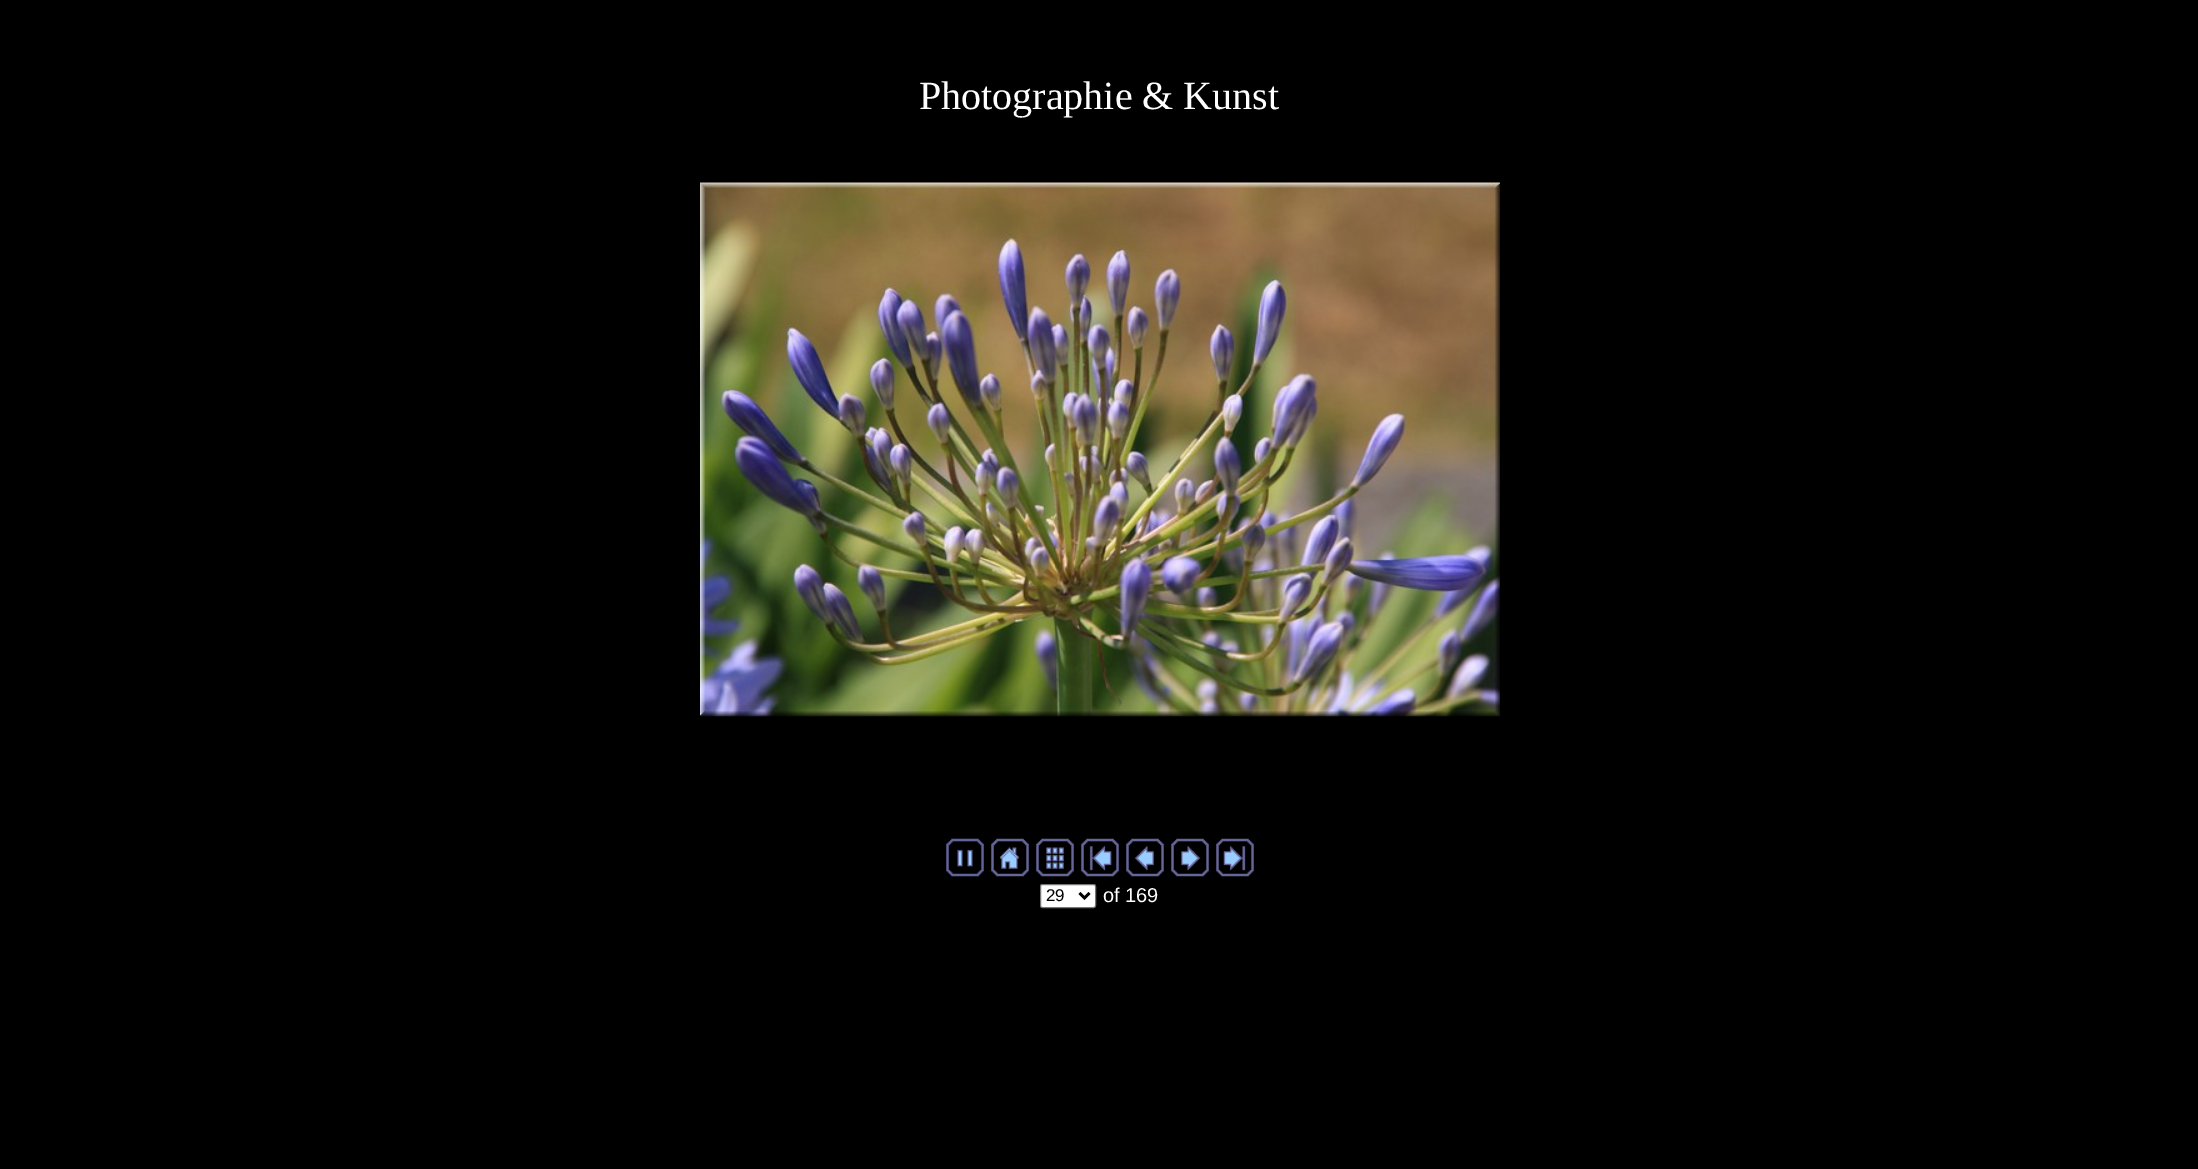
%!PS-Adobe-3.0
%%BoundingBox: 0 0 2198 1169
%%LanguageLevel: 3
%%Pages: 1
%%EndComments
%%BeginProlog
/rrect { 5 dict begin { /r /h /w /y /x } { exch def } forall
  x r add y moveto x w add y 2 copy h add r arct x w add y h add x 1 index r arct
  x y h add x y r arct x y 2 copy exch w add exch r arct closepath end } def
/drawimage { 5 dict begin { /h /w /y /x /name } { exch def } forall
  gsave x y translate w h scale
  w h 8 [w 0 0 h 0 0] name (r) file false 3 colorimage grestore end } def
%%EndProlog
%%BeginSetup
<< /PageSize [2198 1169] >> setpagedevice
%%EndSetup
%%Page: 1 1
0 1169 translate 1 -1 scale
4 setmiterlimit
0 setgray
0 0 2198 1169 rectfill
(images/1.raw) 700 182 800 535 drawimage
(images/2.raw) 946 838 38 39 drawimage
(images/3.raw) 991 838 38 39 drawimage
(images/4.raw) 1036 838 38 39 drawimage
(images/5.raw) 1081 838 38 39 drawimage
(images/6.raw) 1126 838 38 39 drawimage
(images/7.raw) 1171 838 38 39 drawimage
(images/8.raw) 1216 838 38 39 drawimage
1 setgray
1040.5 884.5 55 23 2 rrect gsave fill grestore
0.463 setgray
stroke
0 setgray
2.5 setlinewidth
newpath 1079.5 893 moveto 1084.5 898 lineto 1089.5 893 lineto stroke
/LiberationSerif-Regular [40 0 0 -40 0 0] selectfont
1 setgray
919 109 moveto (Photographie & Kunst) show
/LiberationSans-Regular [17 0 0 -17 0 0] selectfont
0 setgray
1046 901 moveto (29) show
/LiberationSans-Regular [20 0 0 -20 0 0] selectfont
1 setgray
1103 902 moveto (of 169) show
showpage
%%EOF
